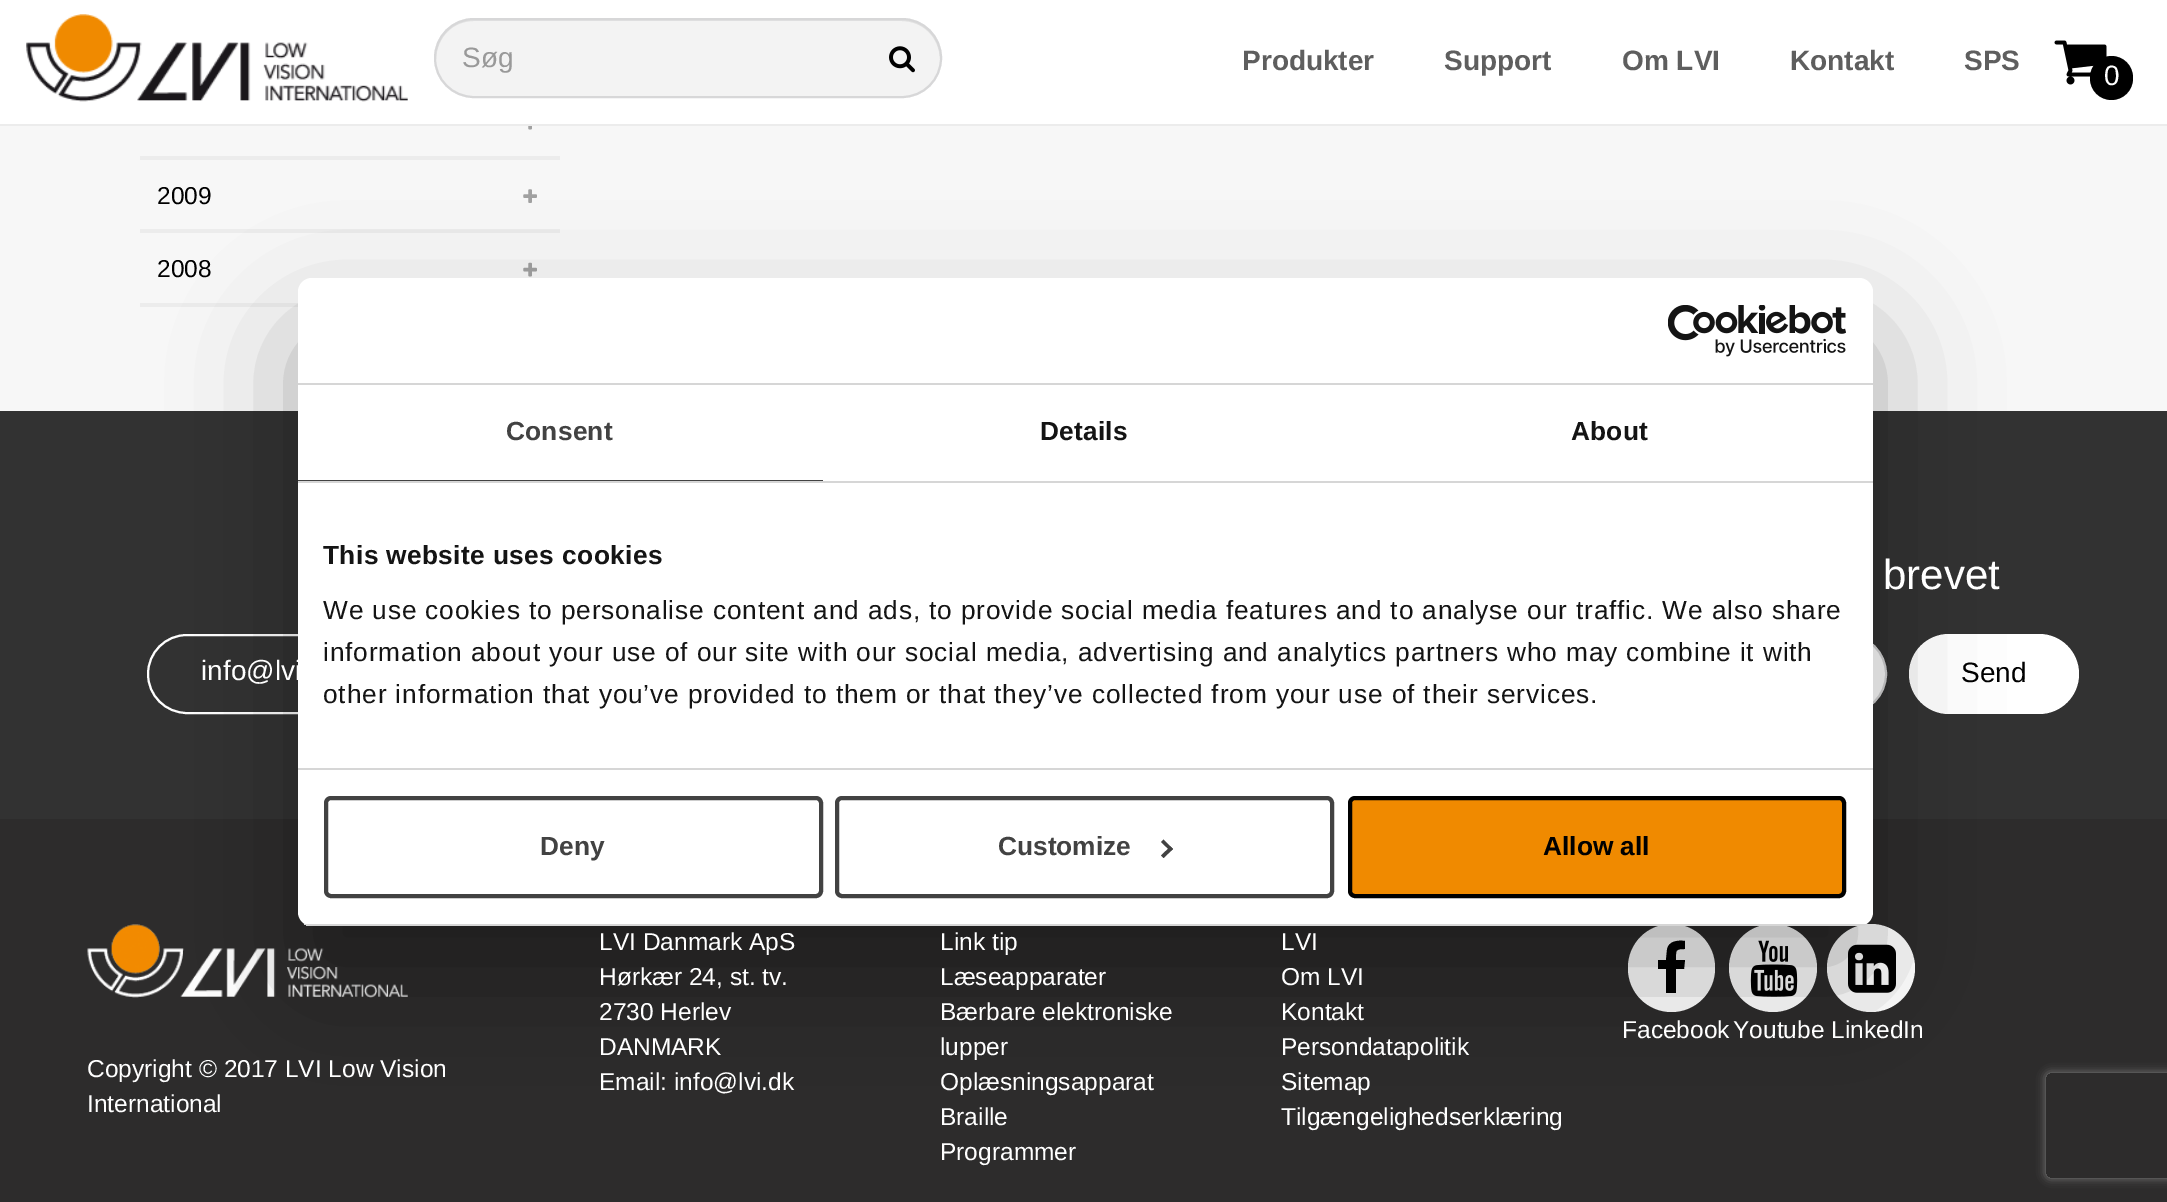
%!PS-Adobe-3.0
%%BoundingBox: 0 0 2167 1202
%%LanguageLevel: 3
%%Pages: 1
%%EndComments
%%BeginProlog
/setalpha { dup .setfillconstantalpha .setstrokeconstantalpha } def
/rrect { 5 dict begin { /r /h /w /y /x } { exch def } forall
  x r add y moveto x w add y 2 copy h add r arct x w add y h add x 1 index r arct
  x y h add x y r arct x y 2 copy exch w add exch r arct closepath end } def
/softshadow { 12 dict begin { /a /b /q /h /w /y /x } { exch def } forall gsave /was 0 def
  9 -2 -9 { dup b mul 4 div /e exch def 1 sub .425 mul 2.718 exch exp 1 add a .99 .min exch div /now exch def
    1 1 now sub 1 was sub div sub setalpha /was now def
    w h .min e 2 mul add 0 gt { x e sub y e sub w e 2 mul add h e 2 mul add
      q e add b .6 mul add w h .min 2 div e add .min 0 .max rrect fill } if } for grestore end } def
/drawimage { 5 dict begin { /h /w /y /x /name } { exch def } forall
  gsave x y translate w h scale
  w h 8 [w 0 0 h 0 0] name (r) file false 3 colorimage grestore end } def
%%EndProlog
%%BeginSetup
<< /PageSize [2167 1202] /PageUsesTransparency true >> setpagedevice
%%EndSetup
%%Page: 1 1
0 .pushpdf14devicefilter
0 1202 translate 1 -1 scale
4 setmiterlimit
0.969 setgray
0 0 2167 1202 rectfill
0.925 setgray
0 124 2167 2 rectfill
1 setgray
0 0 2167 124 rectfill
(images/1.raw) 26 14 382 88 drawimage
0.953 setgray
434 18 508 80 40 rrect fill
0.882 setgray
newpath 474 21 moveto 901 21 lineto 923 21 939 37 940 59 curveto 940 58 lineto 940 36 923 19 902 19 curveto 474 19 lineto 453 19 436 36 436 58 curveto 436 59 lineto 437 37 453 21 474 21 curveto closepath fill
0.843 0.843 0.847 setrgbcolor
2 setlinewidth
435 19 506 78 39 rrect stroke
(images/2.raw) 889 46 26 27 drawimage
(images/3.raw) 2054 40 53 45 drawimage
0 setgray
2090 56 43 44 21.5 rrect fill
(images/4.raw) 528 126 4 4 drawimage
0.925 setgray
140 156 420 4 rectfill
140 229 420 4 rectfill
(images/5.raw) 523 189 14 14 drawimage
140 303 158 4 rectfill
(images/6.raw) 523 262 14 15 drawimage
0.196 setgray
0 411 2167 408 rectfill
1 setgray
148 635 243 78 39 rrect stroke
1469 635 417 78 39 rrect gsave fill grestore
0.843 0.843 0.847 setrgbcolor
stroke
1 setgray
1909 634 170 80 40 rrect fill
0.176 0.173 0.173 setrgbcolor
0 819 2167 383 rectfill
1 setgray
1628 924 87 88 43.5 rrect fill
0 setgray
newpath 1685 941 moveto 1685 949 lineto 1675 949 1676 950 1676 960 curveto 1685 960 lineto 1684 969 lineto 1676 969 lineto 1676 993 lineto 1666 993 lineto 1666 969 lineto 1658 969 lineto 1658 960 lineto 1666 960 lineto 1667 950 lineto 1668 941 1678 940 1685 941 curveto closepath fill
1 setgray
newpath 1773 968 44 0 360 arc closepath fill
(images/8.raw) 1750 940 48 57 drawimage
newpath 1871 968 44 0 360 arc closepath fill
(images/9.raw) 1848 944 48 49 drawimage
(images/10.raw) 87 924 321 74 drawimage
0 setgray
298 334 1575 648 14 59.5 0.3 softshadow
1 setgray
298 278 1575 648 14 rrect fill
0.839 setgray
298 383 1575 2 rectfill
(images/7.raw) 1668 305 178 52 drawimage
298 481 1575 2 rectfill
0.259 setgray
298 480 525 1 rectfill
0.839 setgray
298 768 1575 2 rectfill
gsave
298 278 1575 648 14 rrect clip newpath
298 924 1575 2 rectfill
grestore
0.259 setgray
4 setlinewidth
326 798 495 98 5 rrect stroke
837 798 495 98 5 rrect stroke
newpath 1163.5 839.5 moveto 1173 849 lineto 1170.5 851 lineto 1161 842 lineto closepath fill
newpath 1170.5 846.5 moveto 1173 849 lineto 1163.5 858 lineto 1161 855.5 lineto closepath fill
0.941 0.541 0 setrgbcolor
1350 798 494 98 5 rrect gsave fill grestore
0 setgray
stroke
gsave
newpath 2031 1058 moveto 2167 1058 lineto 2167 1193 lineto 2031 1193 lineto closepath 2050 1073 moveto 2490 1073 lineto 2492 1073 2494 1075 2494 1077 curveto 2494 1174 lineto 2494 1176 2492 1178 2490 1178 curveto 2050 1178 lineto 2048 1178 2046 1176 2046 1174 curveto 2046 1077 lineto 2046 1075 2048 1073 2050 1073 curveto closepath eoclip newpath
0.502 setgray
2046 1073 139 105 4 4.5 1 softshadow
grestore
/LiberationSans-Regular [28 0 0 -28 0 0] selectfont
0.6 setgray
462 67 moveto (Søg) show
/LiberationSans-Bold [28 0 0 -28 0 0] selectfont
0.369 setgray
1242 70 moveto (Produkter) show
1444 70 moveto (Support) show
1622 70 moveto (Om LVI) show
1790 70 moveto (Kontakt) show
1964 70 moveto (SPS) show
/LiberationSans-Regular [28 0 0 -28 0 0] selectfont
1 setgray
2104 85 moveto (0) show
/LiberationSans-Regular [24.5 0 0 -24.5 0 0] selectfont
0 setgray
157 204 moveto (2009) show
157 277 moveto (2008) show
/LiberationSans-Bold [26.25 0 0 -26.25 0 0] selectfont
0.259 setgray
506 440 moveto 0.25 0 (Consent) ashow
0.078 setgray
1040 440 moveto 0.25 0 (Details) ashow
1571 440 moveto 0.25 0 (About) ashow
323 564 moveto 0.4 0 (This website uses cookies) ashow
/LiberationSans-Regular [26.25 0 0 -26.25 0 0] selectfont
323 619 moveto 0.88 0 (We use cookies to personalise content and ads, to provide social media features and to analyse our traffic. We also share) ashow
323 661 moveto 0.88 0 (information about your use of our site with our social media, advertising and analytics partners who may combine it with) ashow
323 703 moveto 0.88 0 (other information that you’ve provided to them or that they’ve collected from your use of their services.) ashow
/LiberationSans-Bold [26.25 0 0 -26.25 0 0] selectfont
0.259 setgray
540 855 moveto (Deny) show
998 855 moveto (Customize) show
0 setgray
1543 855 moveto (Allow all) show
/LiberationSans-Regular [28 0 0 -28 0 0] selectfont
1 setgray
201 680 moveto (info@lvi) show
/LiberationSans-Regular [42 0 0 -42 0 0] selectfont
1883 589 moveto (brevet) show
/LiberationSans-Regular [28 0 0 -28 0 0] selectfont
0 setgray
1961 682 moveto (Send) show
/LiberationSans-Regular [24.5 0 0 -24.5 0 0] selectfont
1 setgray
599 950 moveto (LVI Danmark ApS) show
599 985 moveto (Hørkær 24, st. tv.) show
599 1020 moveto (2730 Herlev) show
599 1055 moveto (DANMARK) show
599 1090 moveto (Email: info@lvi.dk) show
940 950 moveto (Link tip) show
940 985 moveto (Læseapparater) show
940 1020 moveto (Bærbare elektroniske) show
940 1055 moveto (lupper) show
940 1090 moveto (Oplæsningsapparat) show
940 1125 moveto (Braille) show
940 1160 moveto (Programmer) show
1281 950 moveto (LVI) show
1281 985 moveto (Om LVI) show
1281 1020 moveto (Kontakt) show
1281 1055 moveto (Persondatapolitik) show
1281 1090 moveto (Sitemap) show
1281 1125 moveto (Tilgængelighedserklæring) show
1622 1038 moveto (Facebook) show
1733 1038 moveto (Youtube) show
1831 1038 moveto (LinkedIn) show
87 1077 moveto (Copyright © 2017 LVI Low Vision) show
87 1112 moveto (International) show
.poppdf14devicefilter showpage
%%EOF
